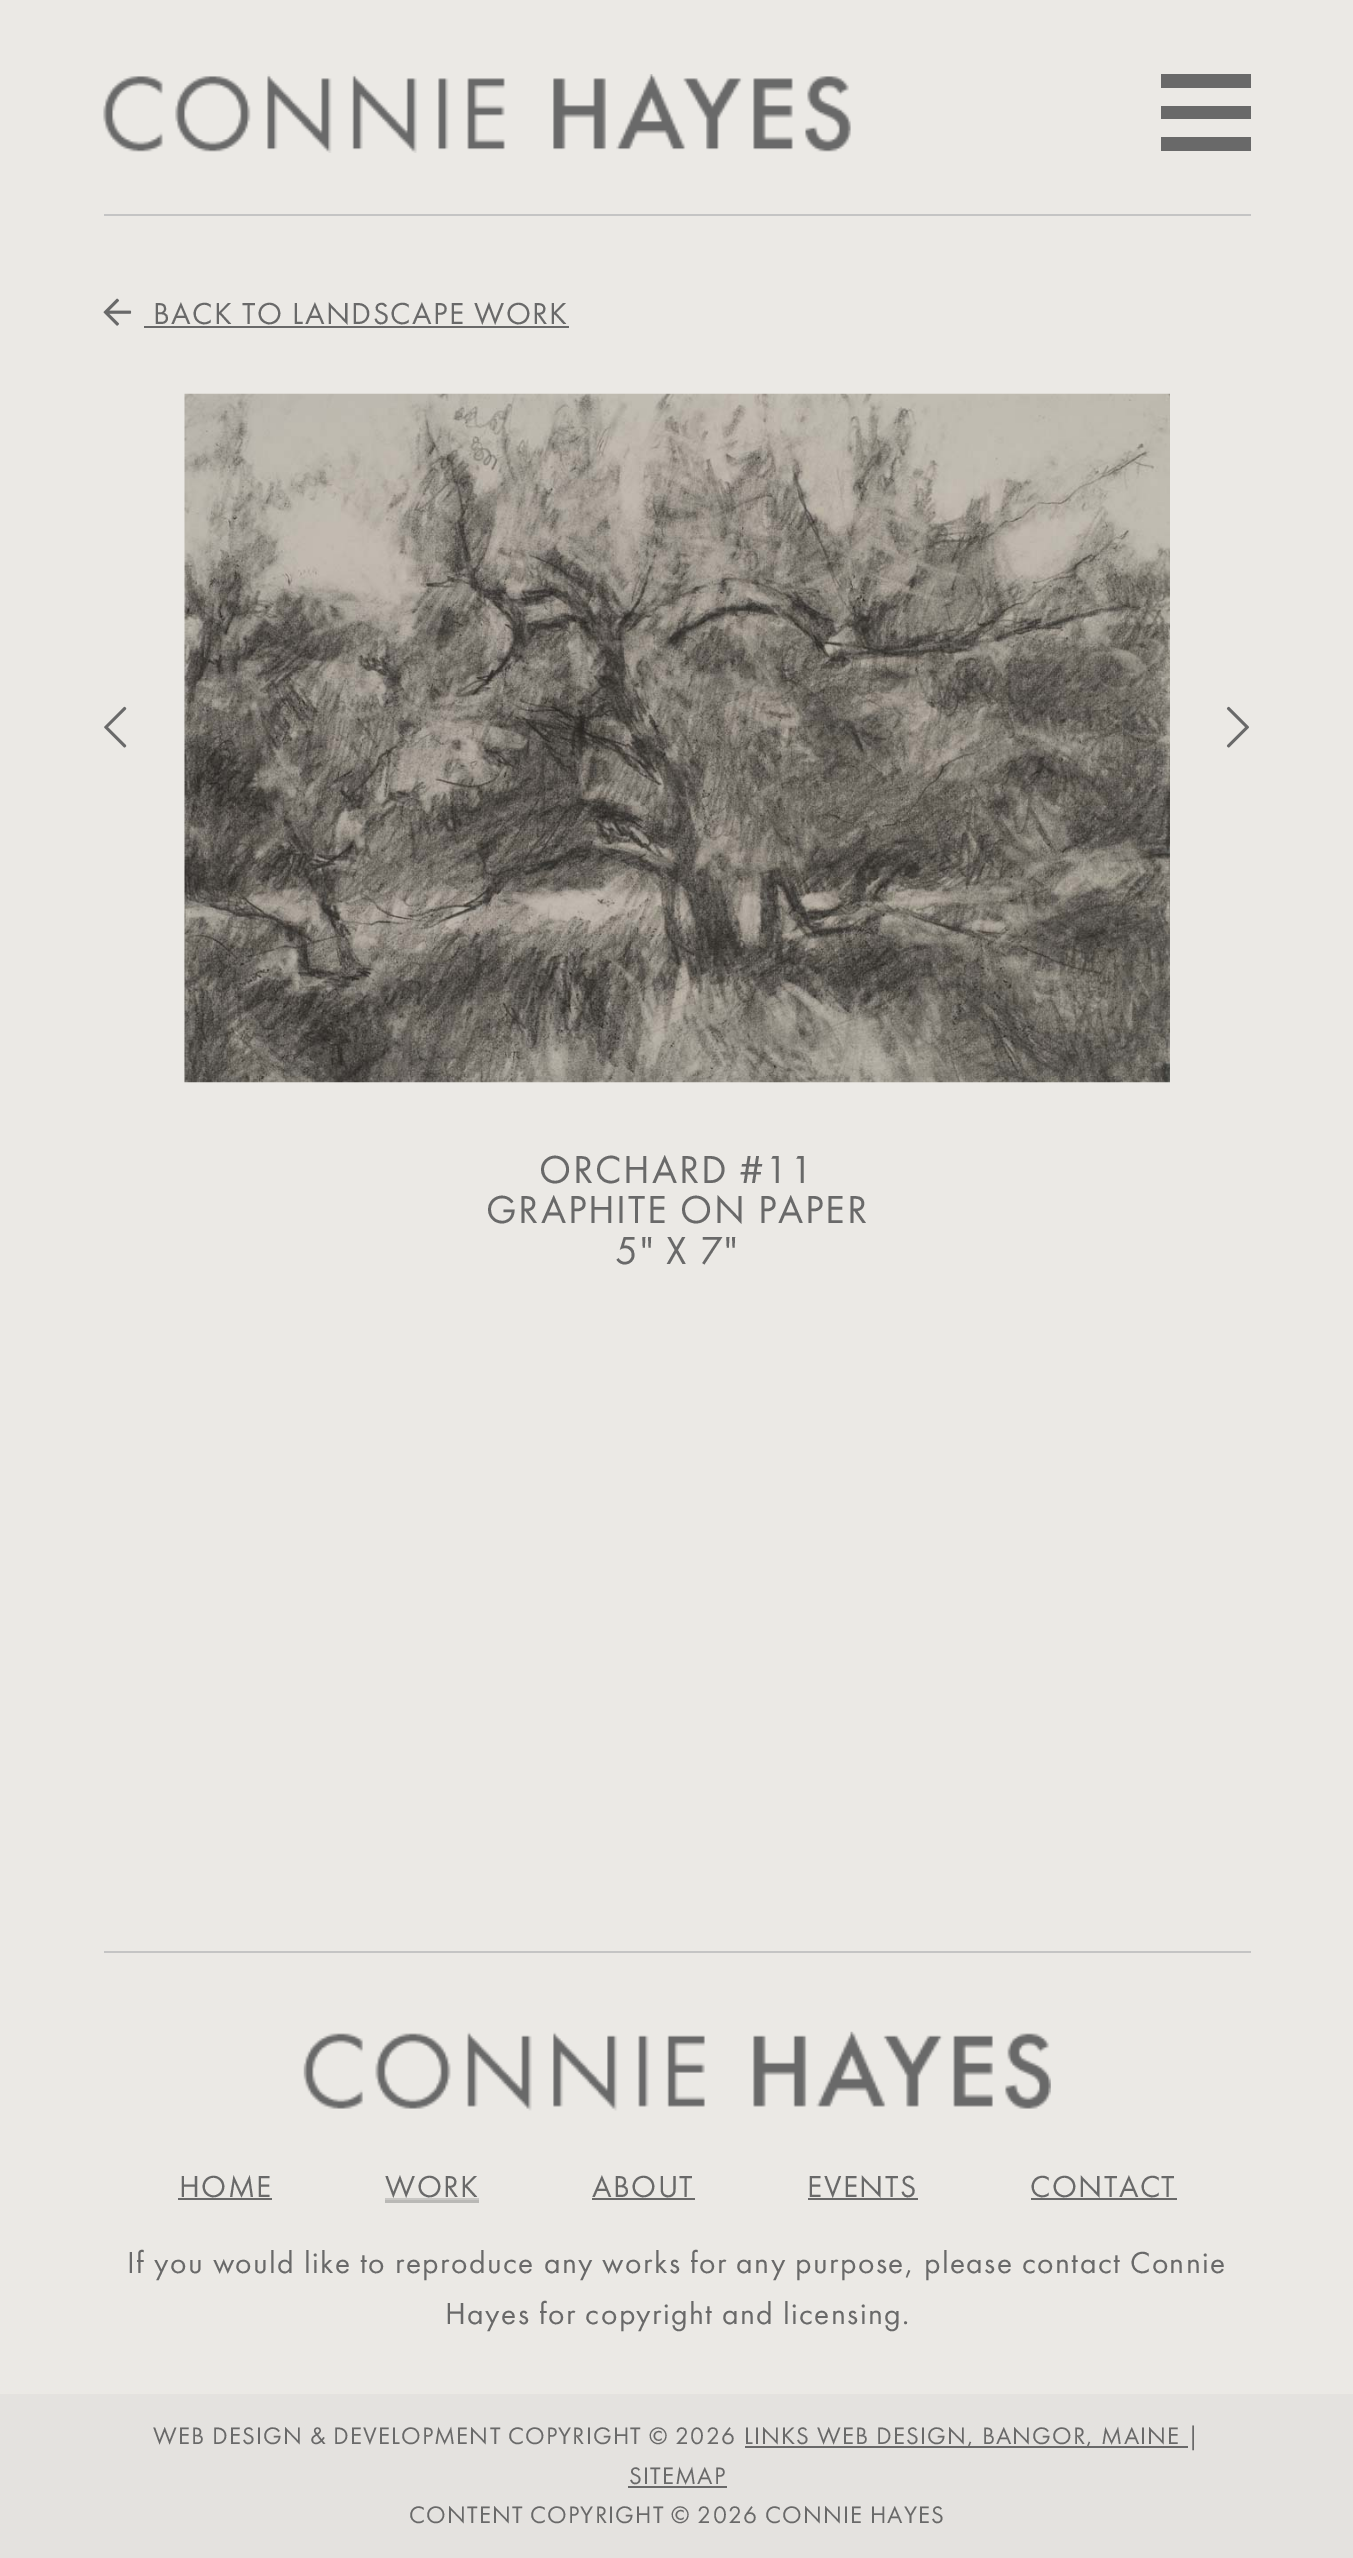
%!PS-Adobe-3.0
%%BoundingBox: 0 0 1353 2558
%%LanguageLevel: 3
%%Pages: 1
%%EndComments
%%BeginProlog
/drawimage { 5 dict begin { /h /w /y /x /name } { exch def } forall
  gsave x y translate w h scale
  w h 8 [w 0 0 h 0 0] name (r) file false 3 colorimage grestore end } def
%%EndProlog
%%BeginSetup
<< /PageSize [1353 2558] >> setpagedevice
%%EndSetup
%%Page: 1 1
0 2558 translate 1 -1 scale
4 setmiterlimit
0.922 0.914 0.898 setrgbcolor
0 0 1353 2558 rectfill
0.769 setgray
104 214 1147 2 rectfill
(images/1.raw) 103 74 748 79 drawimage
0.412 setgray
1161 106 90 13 rectfill
1161 74 90 14 rectfill
1161 137 90 14 rectfill
(images/2.raw) 103 298 29 28 drawimage
144 326 425 2 rectfill
(images/3.raw) 104 706 23 42 drawimage
(images/4.raw) 1226 706 23 42 drawimage
(images/5.raw) 184 393 986 690 drawimage
0.769 setgray
104 1951 1147 2 rectfill
(images/6.raw) 303 2031 748 80 drawimage
0.412 setgray
178 2198 94 2 rectfill
0.725 0.722 0.71 setrgbcolor
385 2200 94 3 rectfill
0.412 setgray
592 2198 103 2 rectfill
808 2198 110 2 rectfill
1031 2198 146 2 rectfill
0.894 0.886 0.875 setrgbcolor
0 2394 1353 164 rectfill
0.412 setgray
745 2446 443 2 rectfill
628 2486 99 2 rectfill
/FuturaPT-Regular [31.5 0 0 -31.5 0 0] selectfont
153 324 moveto 1.42 0 (BACK TO LANDSCAPE WORK) ashow
/FuturaPT-Regular [40.5 0 0 -40.5 0 0] selectfont
539 1183 moveto 1.8 0 (ORCHARD #11) ashow
486 1223 moveto 1.8 0 (GRAPHITE ON PAPER) ashow
615 1264 moveto 1.8 0 (5" X 7") ashow
/FuturaPT-Regular [31.5 0 0 -31.5 0 0] selectfont
179 2197 moveto 1.42 0 (HOME) ashow
385 2197 moveto 1.42 0 (WORK) ashow
0.784 0.78 0.769 setrgbcolor
385 2198 94 2 rectfill
0.412 setgray
592 2197 moveto 1.42 0 (ABOUT) ashow
807 2197 moveto 1.42 0 (EVENTS) ashow
1030 2197 moveto 1.42 0 (CONTACT) ashow
127 2273 moveto 1.42 0 (If you would like to reproduce any works for any purpose, please contact Connie) ashow
445 2324 moveto 1.42 0 (Hayes for copyright and licensing.) ashow
/FuturaPT-Regular [24.75 0 0 -24.75 0 0] selectfont
153 2444 moveto 1.1 0 (WEB DESIGN & DEVELOPMENT COPYRIGHT © 2026) ashow
744 2444 moveto 1.1 0 (LINKS WEB DESIGN, BANGOR, MAINE |) ashow
629 2484 moveto 1.1 0 (SITEMAP) ashow
409 2523 moveto 1.1 0 (CONTENT COPYRIGHT © 2026 CONNIE HAYES) ashow
showpage
%%EOF
